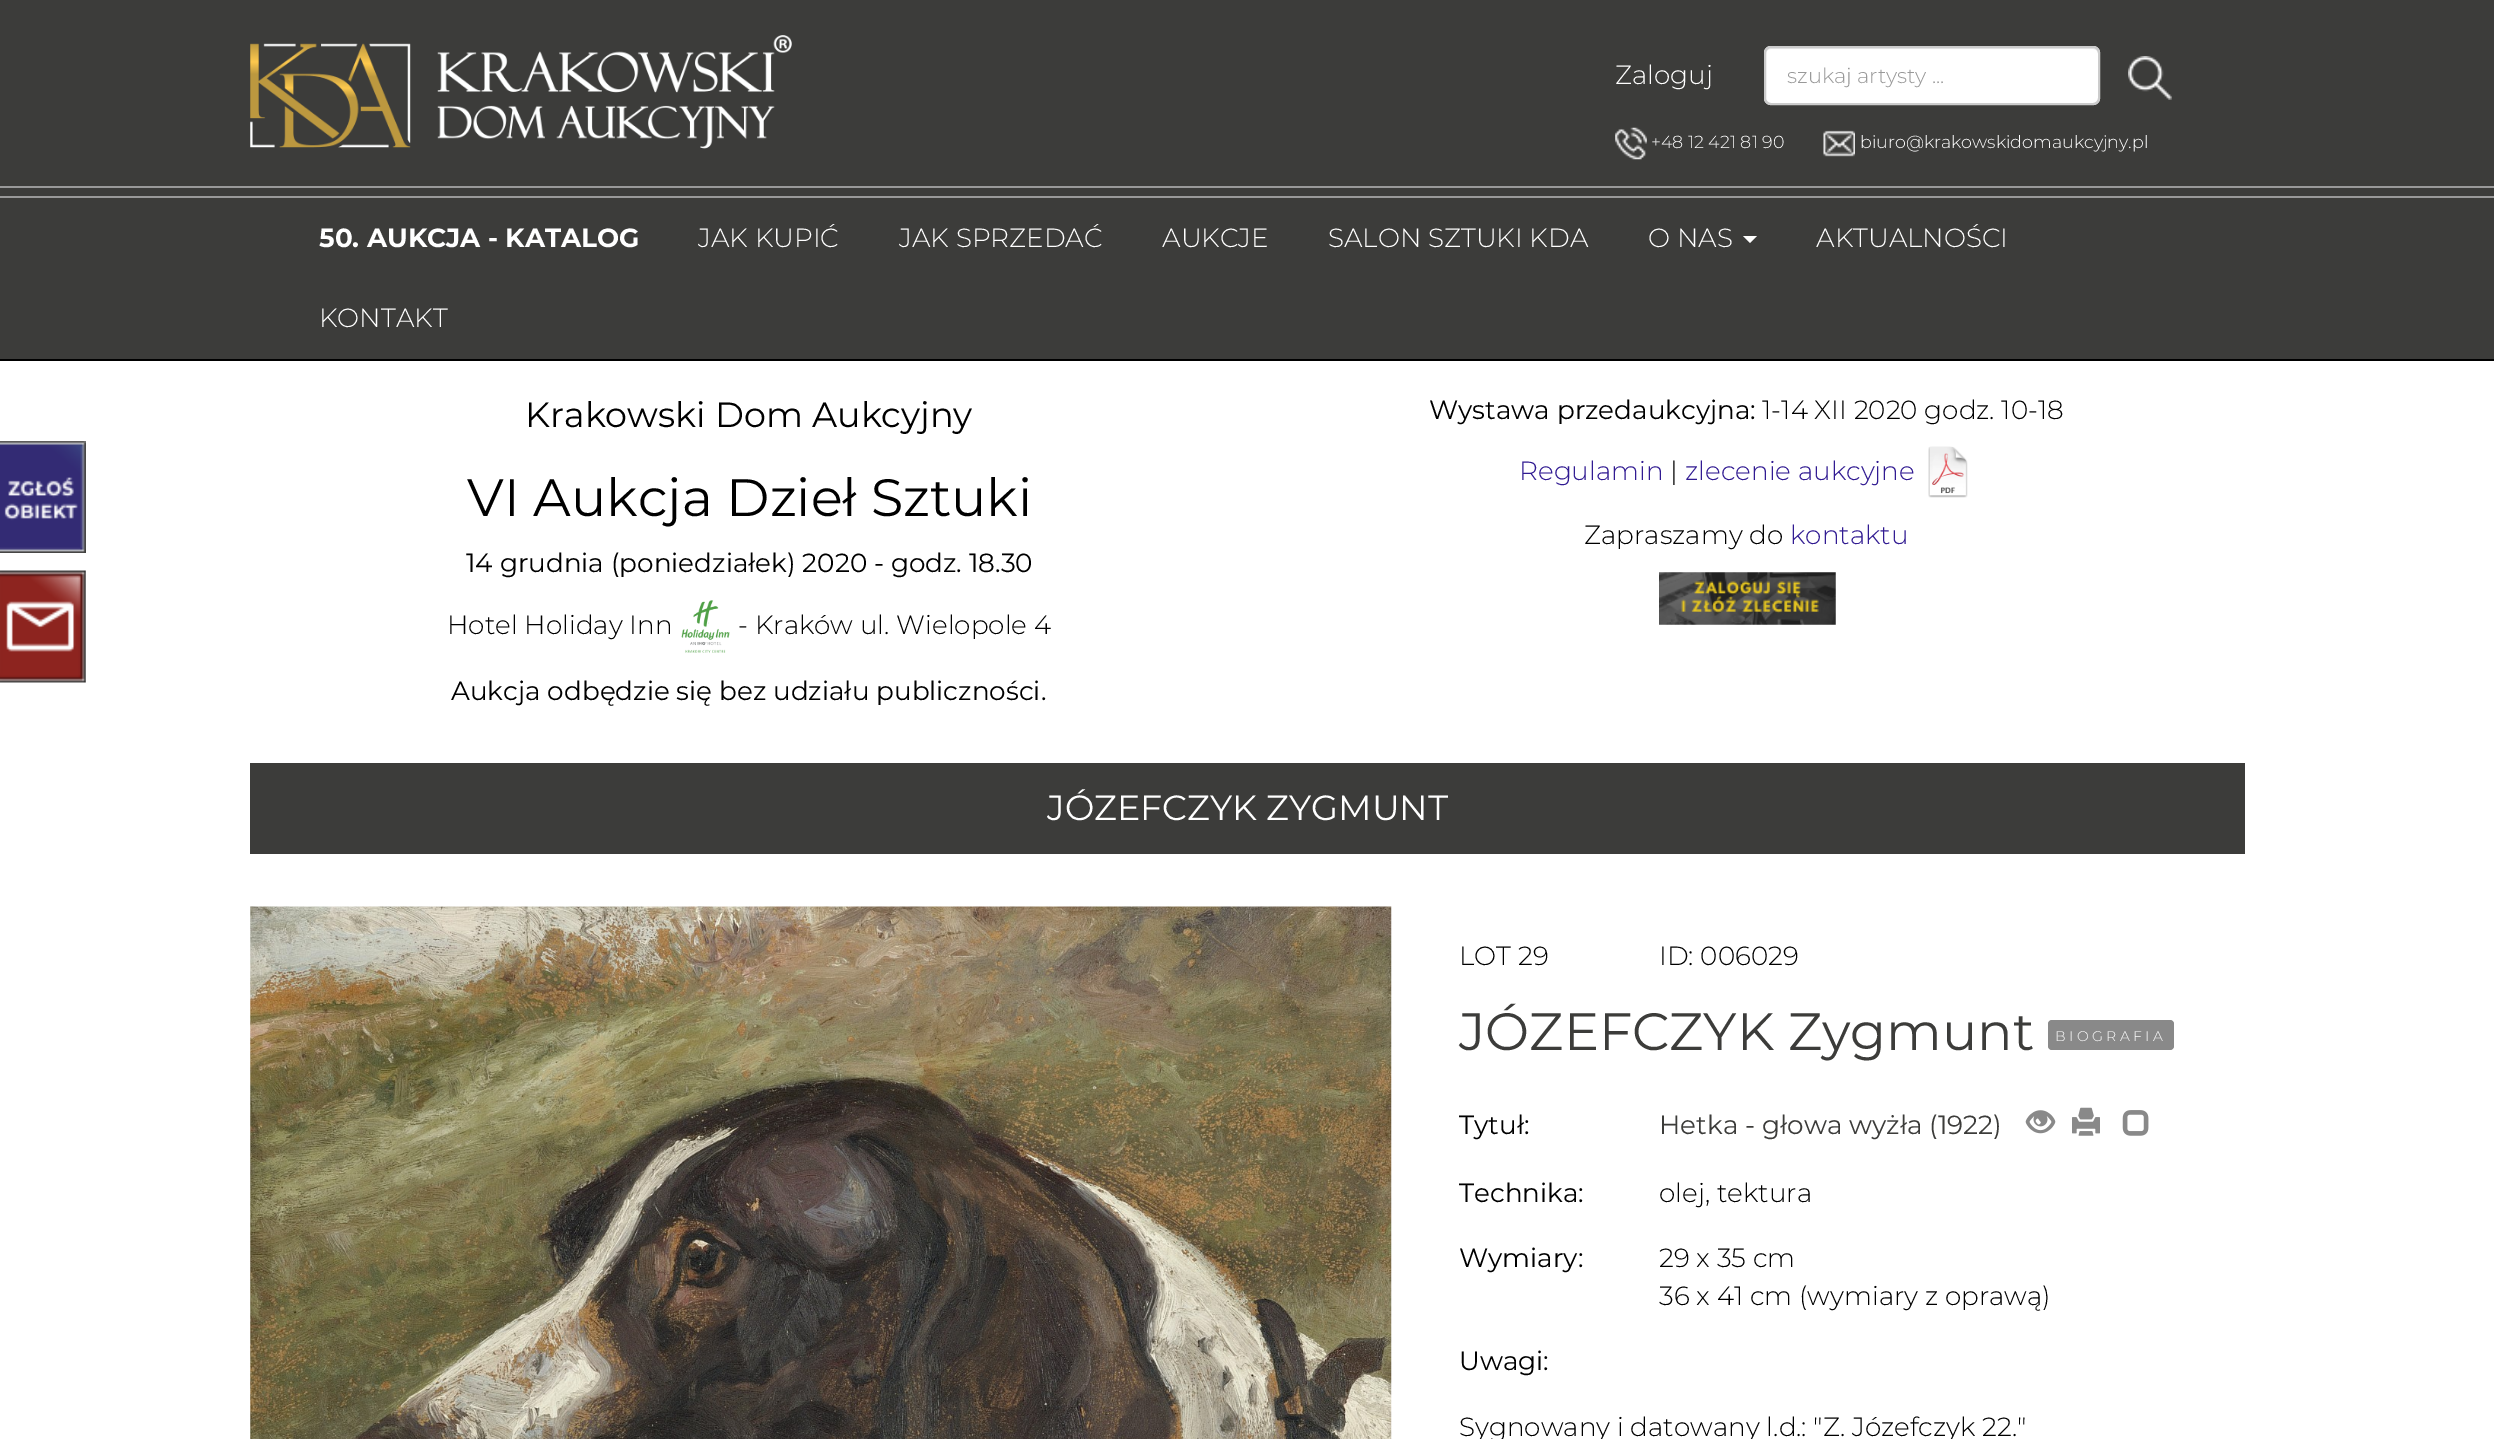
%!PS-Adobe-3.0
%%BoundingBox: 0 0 2494 1439
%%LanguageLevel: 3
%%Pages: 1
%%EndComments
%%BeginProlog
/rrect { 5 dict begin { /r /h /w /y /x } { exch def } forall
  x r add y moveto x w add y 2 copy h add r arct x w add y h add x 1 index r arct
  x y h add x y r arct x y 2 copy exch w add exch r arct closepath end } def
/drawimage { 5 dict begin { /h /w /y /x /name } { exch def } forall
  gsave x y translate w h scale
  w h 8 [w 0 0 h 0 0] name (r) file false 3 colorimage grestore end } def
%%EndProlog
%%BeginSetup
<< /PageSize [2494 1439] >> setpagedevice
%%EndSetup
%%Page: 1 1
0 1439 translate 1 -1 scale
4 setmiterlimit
1 setgray
0 0 2494 1439 rectfill
0.235 0.235 0.227 setrgbcolor
0 0 2494 186 rectfill
(images/1.raw) 250 35 542 114 drawimage
1 setgray
1764 46 336 59 7 rrect fill
0.925 setgray
newpath 1771 49 moveto 2093 49 lineto 2096 49 2098 51 2098 54 curveto 2098 52 lineto 2098 49 2096 47 2093 47 curveto 1771 47 lineto 1768 47 1766 49 1766 52 curveto 1766 54 lineto 1766 51 1768 49 1771 49 curveto closepath fill
0.8 setgray
2 setlinewidth
1765 47 334 57 6 rrect stroke
(images/2.raw) 2128 56 44 44 drawimage
(images/3.raw) 1615 127 32 33 drawimage
(images/4.raw) 1823 130 32 27 drawimage
0.235 0.235 0.227 setrgbcolor
0 188 2494 171 rectfill
0.6 setgray
0 186 2494 2 rectfill
0 196 2494 2 rectfill
0 setgray
0 359 2494 2 rectfill
1 setgray
newpath 1743 236 moveto 1757 236 lineto 1750 243 lineto closepath fill
(images/5.raw) 0 441 86 112 drawimage
(images/6.raw) 681 600 49 53 drawimage
(images/7.raw) 1928 446 40 52 drawimage
(images/8.raw) 1659 572 177 53 drawimage
0.235 0.235 0.227 setrgbcolor
250 763 1995 91 rectfill
(images/9.raw) 250 906 1142 533 drawimage
0.537 setgray
2048 1020 126 30 4 rrect fill
(images/10.raw) 2025 1110 31 24 drawimage
(images/11.raw) 2072 1107 28 29 drawimage
(images/12.raw) 2122 1110 27 26 drawimage
(images/13.raw) 0 570 86 113 drawimage
/Montserrat-Light [26.25 0 0 -26.25 0 0] selectfont
1 setgray
1615 84 moveto (Zaloguj) show
/Montserrat-Light [21 0 0 -21 0 0] selectfont
0.6 setgray
1787 83 moveto (szukaj artysty ...) show
/Montserrat-Light [17.5 0 0 -17.5 0 0] selectfont
1 setgray
1651 148 moveto (+48 12 421 81 90) show
1860 148 moveto (biuro@krakowskidomaukcyjny.pl) show
/Montserrat-Bold [26.25 0 0 -26.25 0 0] selectfont
319 247 moveto (50. AUKCJA - KATALOG) show
/Montserrat-Light [26.25 0 0 -26.25 0 0] selectfont
698 247 moveto (JAK KUPIĆ) show
899 247 moveto (JAK SPRZEDAĆ) show
1162 247 moveto (AUKCJE) show
1328 247 moveto (SALON SZTUKI KDA) show
1648 247 moveto (O NAS) show
1816 247 moveto (AKTUALNOŚCI) show
319 327 moveto (KONTAKT) show
/Montserrat-Regular [35 0 0 -35 0 0] selectfont
0 setgray
525 427 moveto (Krakowski Dom Aukcyjny) show
/Montserrat-Regular [52.5 0 0 -52.5 0 0] selectfont
467 516 moveto (VI Aukcja Dzieł Sztuki) show
/Montserrat-Regular [26.25 0 0 -26.25 0 0] selectfont
466 572 moveto (14 grudnia \(poniedziałek\) 2020 - godz. 18.30) show
/Montserrat-Light [26.25 0 0 -26.25 0 0] selectfont
447 634 moveto (Hotel Holiday Inn) show
738 634 moveto (- Kraków ul. Wielopole 4) show
/Montserrat-Regular [26.25 0 0 -26.25 0 0] selectfont
451 700 moveto (Aukcja odbędzie się bez udziału publiczności.) show
1429 419 moveto (Wystawa przedaukcyjna:) show
/Montserrat-Light [26.25 0 0 -26.25 0 0] selectfont
1762 419 moveto (1-14 XII 2020 godz. 10-18) show
0.192 0.106 0.573 setrgbcolor
1519 480 moveto (Regulamin) show
0 setgray
1670 480 moveto (|) show
0.192 0.106 0.573 setrgbcolor
1685 480 moveto (zlecenie aukcyjne) show
0 setgray
1584 544 moveto (Zapraszamy do) show
0.192 0.106 0.573 setrgbcolor
1790 544 moveto (kontaktu) show
/Montserrat-Regular [35 0 0 -35 0 0] selectfont
1 setgray
1047 820 moveto (JÓZEFCZYK ZYGMUNT) show
/Montserrat-Light [26.25 0 0 -26.25 0 0] selectfont
0 setgray
1459 965 moveto (LOT 29) show
1659 965 moveto (ID: 006029) show
/Montserrat-Regular [52.5 0 0 -52.5 0 0] selectfont
0.235 0.235 0.227 setrgbcolor
1459 1050 moveto (JÓZEFCZYK Zygmunt) show
/Montserrat-Light [14 0 0 -14 0 0] selectfont
1 setgray
2055 1041 moveto 3.5 0 (BIOGRAFIA) ashow
/Montserrat-Regular [26.25 0 0 -26.25 0 0] selectfont
0 setgray
1459 1134 moveto (Tytuł:) show
0.235 0.235 0.227 setrgbcolor
1659 1134 moveto (Hetka - głowa wyżła \(1922\)) show
0 setgray
1459 1202 moveto (Technika:) show
/Montserrat-Light [26.25 0 0 -26.25 0 0] selectfont
1659 1202 moveto (olej, tektura) show
/Montserrat-Regular [26.25 0 0 -26.25 0 0] selectfont
1459 1267 moveto (Wymiary:) show
/Montserrat-Light [26.25 0 0 -26.25 0 0] selectfont
1659 1267 moveto (29 x 35 cm) show
1659 1305 moveto (36 x 41 cm \(wymiary z oprawą\)) show
/Montserrat-Regular [26.25 0 0 -26.25 0 0] selectfont
1459 1370 moveto (Uwagi:) show
/Montserrat-Light [26.25 0 0 -26.25 0 0] selectfont
1459 1436 moveto (Sygnowany i datowany l.d.: "Z. Józefczyk 22.") show
showpage
%%EOF
